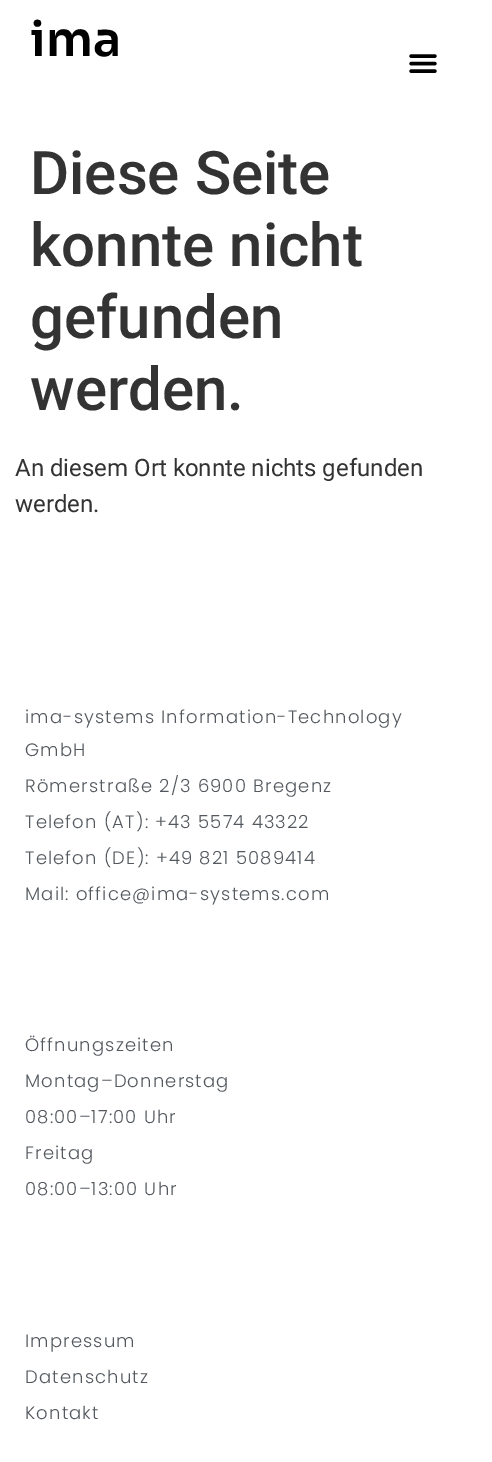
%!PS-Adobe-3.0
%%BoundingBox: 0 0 492 1462
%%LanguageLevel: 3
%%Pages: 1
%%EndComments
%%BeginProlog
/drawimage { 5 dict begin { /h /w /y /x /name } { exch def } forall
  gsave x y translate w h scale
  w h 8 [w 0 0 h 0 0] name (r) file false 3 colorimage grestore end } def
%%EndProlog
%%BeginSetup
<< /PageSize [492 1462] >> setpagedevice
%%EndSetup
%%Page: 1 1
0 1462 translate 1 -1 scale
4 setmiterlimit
1 setgray
0 0 492 1462 rectfill
(images/1.raw) 409 54 28 19 drawimage
/Sora-SemiBold [48 0 0 -48 0 0] selectfont
0 setgray
30 56 moveto (ima) show
/Roboto-Medium [60 0 0 -60 0 0] selectfont
0.2 setgray
30 194 moveto (Diese Seite) show
30 266 moveto (konnte nicht) show
30 338 moveto (gefunden) show
30 410 moveto (werden.) show
/Roboto-Regular [24 0 0 -24 0 0] selectfont
15 476 moveto (An diesem Ort konnte nichts gefunden) show
15 512 moveto (werden.) show
/Poppins-Light [18 0 0 -18 0 0] selectfont
0.329 0.349 0.373 setrgbcolor
25 723 moveto 1.15 0 (ima-systems Information-Technology) ashow
25 756 moveto 1.15 0 (GmbH) ashow
25 792 moveto 1.15 0 (Römerstraße 2/3 6900 Bregenz) ashow
25 828 moveto 1.15 0 (Telefon \(AT\): +43 5574 43322) ashow
25 864 moveto 1.15 0 (Telefon \(DE\): +49 821 5089414) ashow
25 900 moveto 1.15 0 (Mail: office@ima-systems.com) ashow
25 1051 moveto 1.15 0 (Öffnungszeiten) ashow
25 1087 moveto 1.15 0 (Montag–Donnerstag) ashow
25 1123 moveto 1.15 0 (08:00–17:00 Uhr) ashow
25 1159 moveto 1.15 0 (Freitag) ashow
25 1195 moveto 1.15 0 (08:00–13:00 Uhr) ashow
25 1347 moveto 1.15 0 (Impressum) ashow
25 1383 moveto 1.15 0 (Datenschutz) ashow
25 1419 moveto 1.15 0 (Kontakt) ashow
showpage
%%EOF
